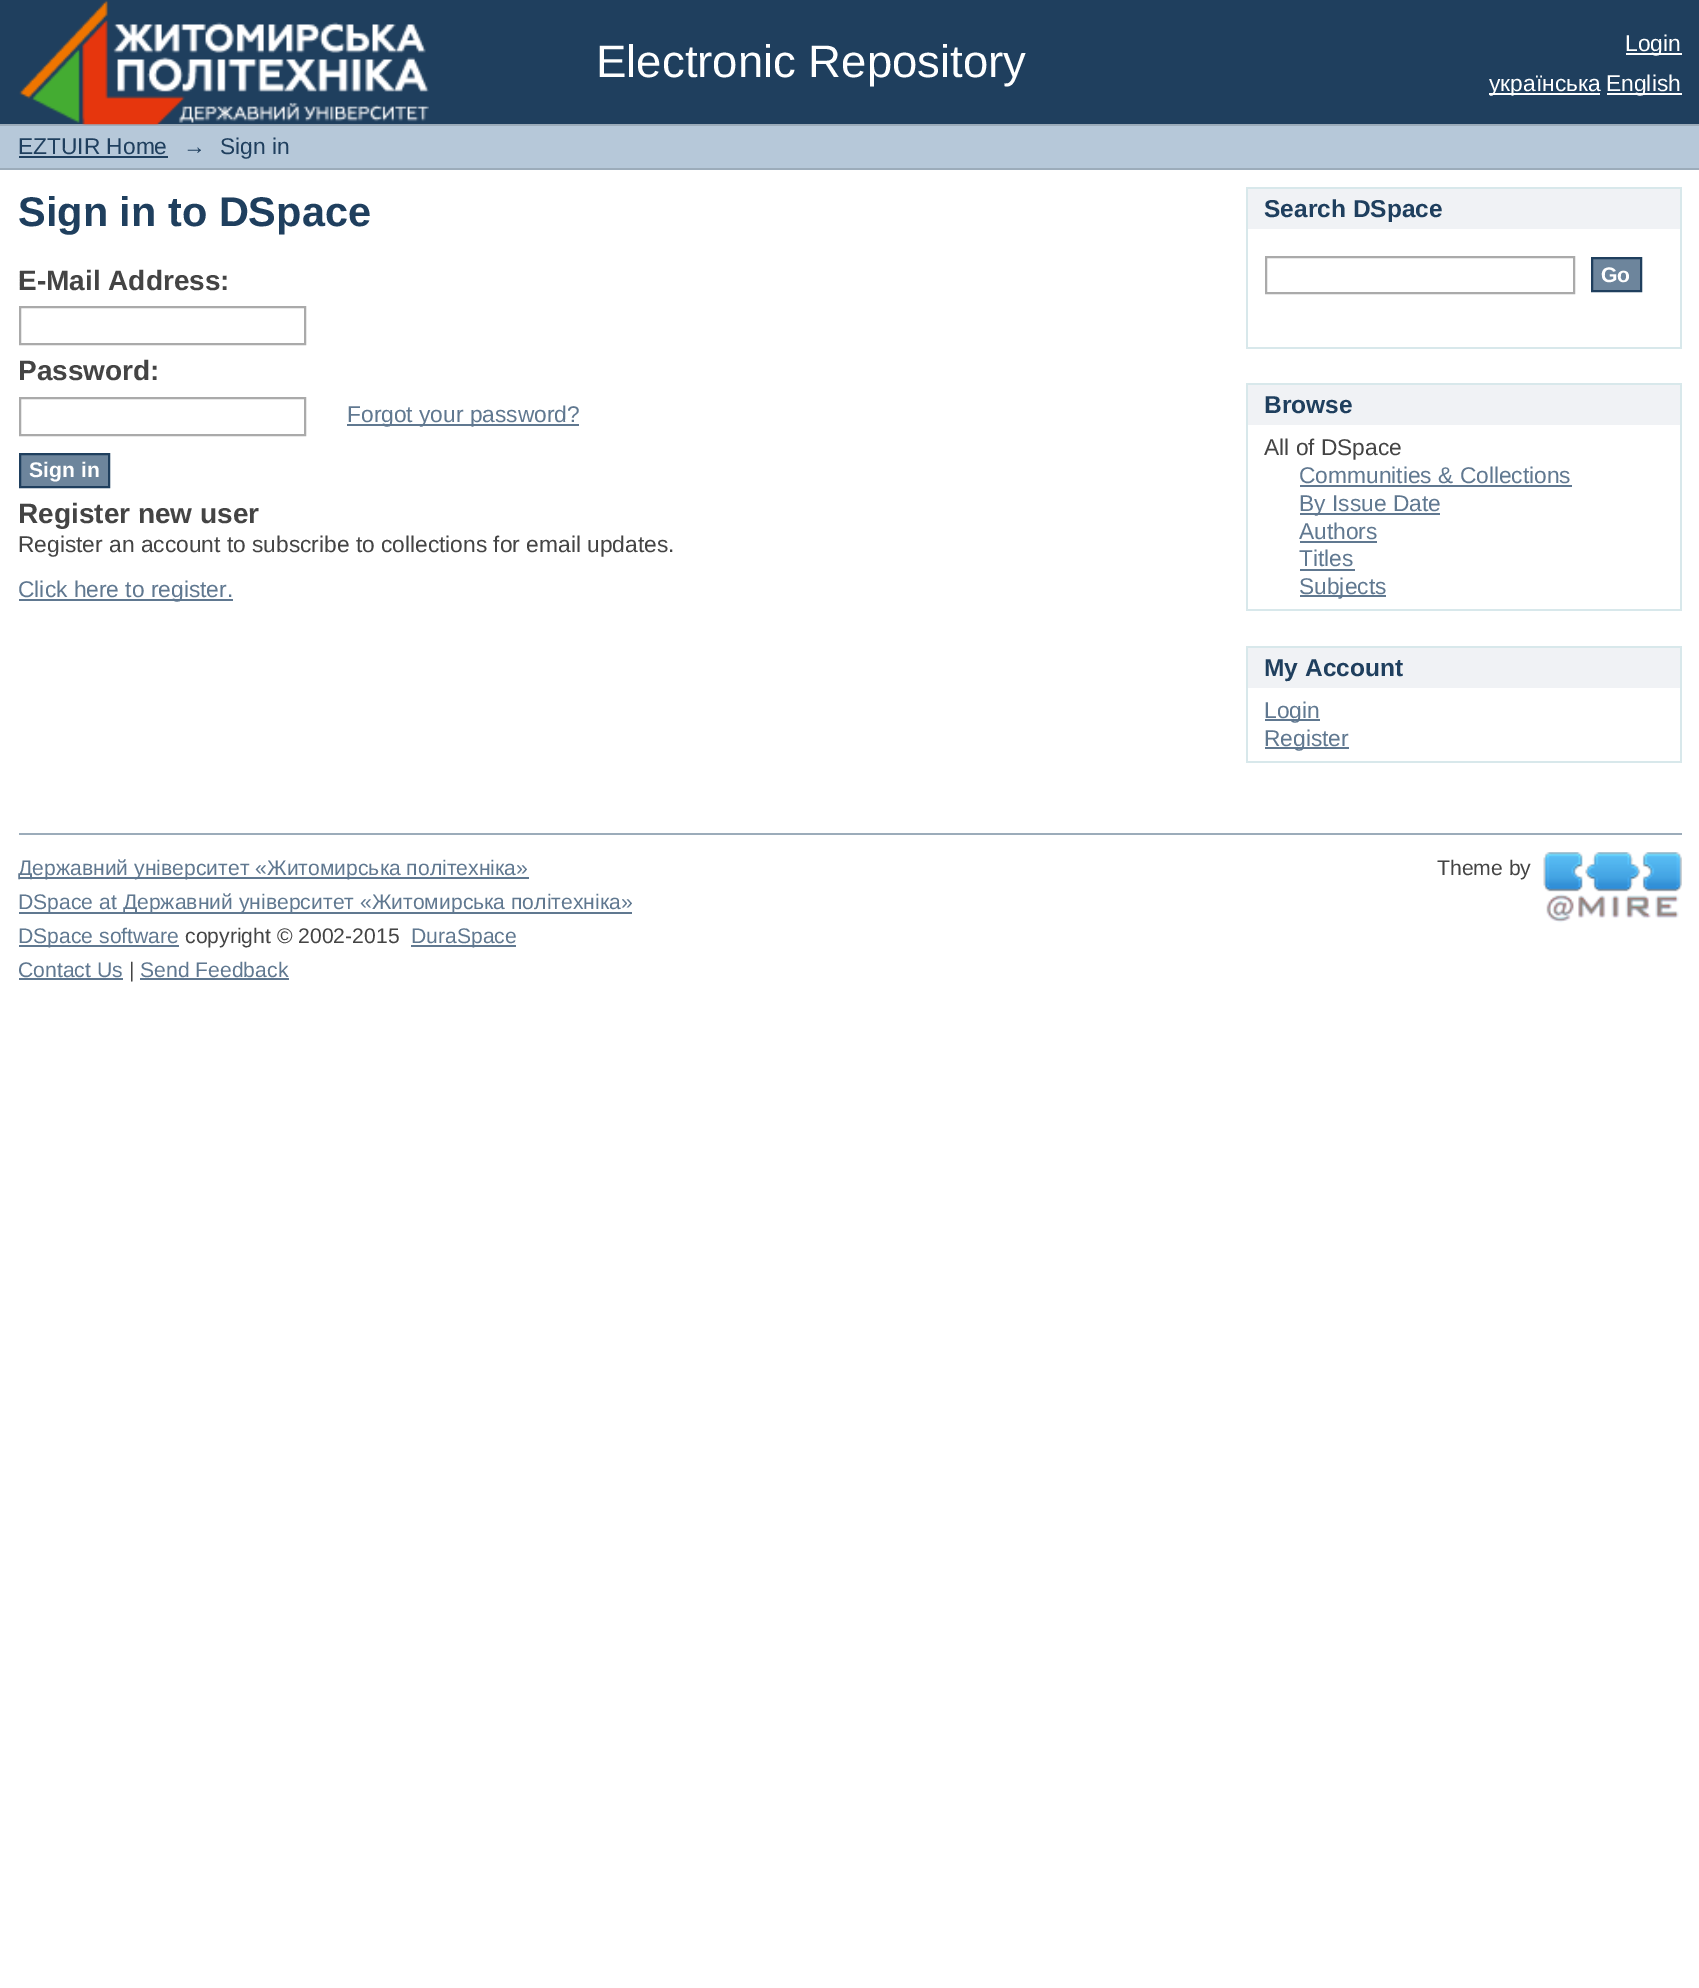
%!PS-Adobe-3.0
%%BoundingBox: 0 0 1699 1988
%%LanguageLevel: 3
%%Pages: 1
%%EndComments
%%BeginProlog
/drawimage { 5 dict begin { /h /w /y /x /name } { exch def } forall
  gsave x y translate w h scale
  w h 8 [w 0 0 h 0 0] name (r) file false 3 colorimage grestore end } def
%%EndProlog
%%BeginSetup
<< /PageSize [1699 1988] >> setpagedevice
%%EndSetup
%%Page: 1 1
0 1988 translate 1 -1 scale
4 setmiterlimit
1 setgray
0 0 1699 1988 rectfill
0.122 0.247 0.369 setrgbcolor
0 0 1699 124 rectfill
0.612 0.675 0.729 setrgbcolor
0 124 1699 2 rectfill
(images/1.raw) 19 0 410 125 drawimage
1 setgray
1626 53 56 2 rectfill
1489 93 111 2 rectfill
1607 93 75 2 rectfill
0.714 0.784 0.851 setrgbcolor
0 126 1699 42 rectfill
0.612 0.675 0.729 setrgbcolor
0 168 1699 2 rectfill
0.122 0.247 0.369 setrgbcolor
19 156 149 2 rectfill
0.667 setgray
2 setlinewidth
20 307 285 37 rectstroke
20 398 285 37 rectstroke
0.376 0.471 0.565 setrgbcolor
347 424 232 2 rectfill
0.427 0.522 0.612 setrgbcolor
newpath 20 454 moveto 109 454 lineto 109 487 lineto 20 487 lineto closepath gsave fill grestore
0.122 0.247 0.369 setrgbcolor
stroke
0.376 0.471 0.565 setrgbcolor
19 599 214 2 rectfill
0.941 0.949 0.961 setrgbcolor
1248 189 432 40 rectfill
0.847 0.91 0.922 setrgbcolor
1246 187 436 2 rectfill
1680 187 2 161 rectfill
1246 187 2 42 rectfill
1246 347 436 2 rectfill
1246 229 2 119 rectfill
0.667 setgray
1266 257 308 36 rectstroke
0.427 0.522 0.612 setrgbcolor
newpath 1592 258 moveto 1641 258 lineto 1641 291 lineto 1592 291 lineto closepath gsave fill grestore
0.122 0.247 0.369 setrgbcolor
stroke
0.941 0.949 0.961 setrgbcolor
1248 385 432 40 rectfill
0.847 0.91 0.922 setrgbcolor
1246 383 436 2 rectfill
1680 383 2 228 rectfill
1246 383 2 42 rectfill
1246 609 436 2 rectfill
1246 425 2 186 rectfill
0.376 0.471 0.565 setrgbcolor
1300 485 272 2 rectfill
1300 513 140 2 rectfill
1300 541 77 2 rectfill
1300 569 55 2 rectfill
1300 595 86 2 rectfill
0.941 0.949 0.961 setrgbcolor
1248 648 432 40 rectfill
0.847 0.91 0.922 setrgbcolor
1246 646 436 2 rectfill
1680 646 2 117 rectfill
1246 646 2 42 rectfill
1246 761 436 2 rectfill
1246 688 2 75 rectfill
0.376 0.471 0.565 setrgbcolor
1265 719 55 2 rectfill
1265 747 84 2 rectfill
0.612 0.675 0.729 setrgbcolor
19 833 1663 2 rectfill
0.376 0.471 0.565 setrgbcolor
19 877 510 2 rectfill
19 912 613 2 rectfill
19 945 160 2 rectfill
411 945 105 2 rectfill
(images/2.raw) 1543 852 139 71 drawimage
19 978 104 2 rectfill
140 978 149 2 rectfill
/LiberationSans-Regular [45.5 0 0 -45.5 0 0] selectfont
1 setgray
596 77 moveto (Electronic Repository) show
/LiberationSans-Regular [22.75 0 0 -22.75 0 0] selectfont
1625 51 moveto (Login) show
1489 91 moveto (українська) show
1606 91 moveto (English) show
0.122 0.247 0.369 setrgbcolor
18 154 moveto (EZTUIR Home) show
183 154 moveto (→) show
220 154 moveto (Sign in) show
/LiberationSans-Bold [41.5 0 0 -41.5 0 0] selectfont
18 226 moveto (Sign in to DSpace) show
/LiberationSans-Bold [28 0 0 -28 0 0] selectfont
0.267 setgray
18 290 moveto (E-Mail Address:) show
18 380 moveto (Password:) show
/LiberationSans-Regular [22.75 0 0 -22.75 0 0] selectfont
0.376 0.471 0.565 setrgbcolor
347 422 moveto (Forgot your password?) show
/LiberationSans-Bold [21.15 0 0 -21.15 0 0] selectfont
1 setgray
29 477 moveto (Sign in) show
/LiberationSans-Bold [28 0 0 -28 0 0] selectfont
0.267 setgray
18 523 moveto (Register new user) show
/LiberationSans-Regular [22.75 0 0 -22.75 0 0] selectfont
18 552 moveto (Register an account to subscribe to collections for email updates.) show
0.376 0.471 0.565 setrgbcolor
18 597 moveto (Click here to register.) show
/LiberationSans-Bold [24.5 0 0 -24.5 0 0] selectfont
0.122 0.247 0.369 setrgbcolor
1264 217 moveto (Search DSpace) show
/LiberationSans-Bold [21.15 0 0 -21.15 0 0] selectfont
1 setgray
1601 282 moveto (Go) show
/LiberationSans-Bold [24.5 0 0 -24.5 0 0] selectfont
0.122 0.247 0.369 setrgbcolor
1264 413 moveto (Browse) show
/LiberationSans-Regular [22.75 0 0 -22.75 0 0] selectfont
0.267 setgray
1264 455 moveto (All of DSpace) show
0.376 0.471 0.565 setrgbcolor
1299 483 moveto (Communities & Collections) show
1299 511 moveto (By Issue Date) show
1299 539 moveto (Authors) show
1299 566 moveto (Titles) show
1299 594 moveto (Subjects) show
/LiberationSans-Bold [24.5 0 0 -24.5 0 0] selectfont
0.122 0.247 0.369 setrgbcolor
1264 676 moveto (My Account) show
/LiberationSans-Regular [22.75 0 0 -22.75 0 0] selectfont
0.376 0.471 0.565 setrgbcolor
1264 718 moveto (Login) show
1264 746 moveto (Register) show
/LiberationSans-Regular [21.15 0 0 -21.15 0 0] selectfont
18 875 moveto (Державний університет «Житомирська політехніка») show
18 909 moveto (DSpace at Державний університет «Житомирська політехніка») show
18 943 moveto (DSpace software) show
0.267 setgray
185 943 moveto (copyright © 2002-2015) show
0.376 0.471 0.565 setrgbcolor
411 943 moveto (DuraSpace) show
0.267 setgray
1437 875 moveto (Theme by) show
0.376 0.471 0.565 setrgbcolor
18 977 moveto (Contact Us) show
0.267 setgray
129 977 moveto (|) show
0.376 0.471 0.565 setrgbcolor
140 977 moveto (Send Feedback) show
showpage
%%EOF
